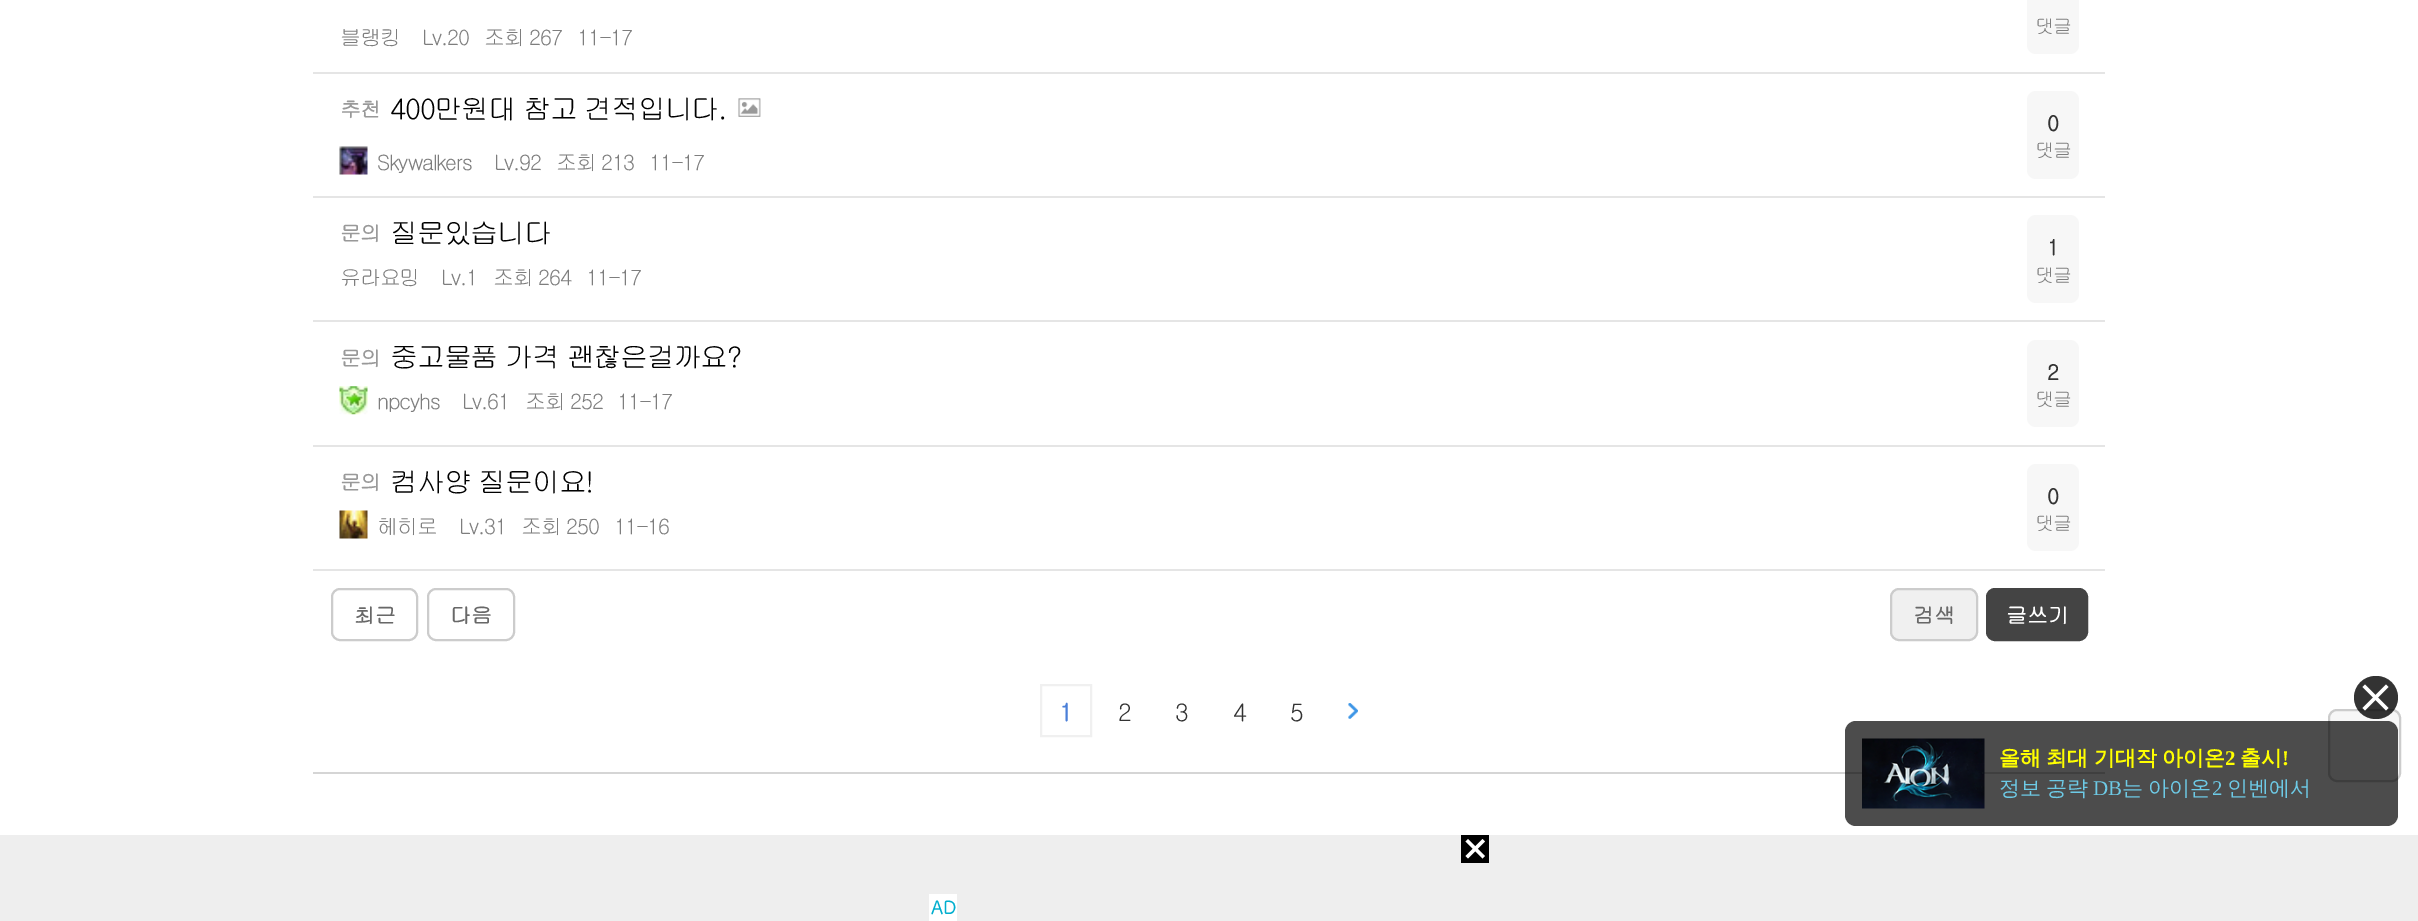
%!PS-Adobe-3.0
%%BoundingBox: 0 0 2418 921
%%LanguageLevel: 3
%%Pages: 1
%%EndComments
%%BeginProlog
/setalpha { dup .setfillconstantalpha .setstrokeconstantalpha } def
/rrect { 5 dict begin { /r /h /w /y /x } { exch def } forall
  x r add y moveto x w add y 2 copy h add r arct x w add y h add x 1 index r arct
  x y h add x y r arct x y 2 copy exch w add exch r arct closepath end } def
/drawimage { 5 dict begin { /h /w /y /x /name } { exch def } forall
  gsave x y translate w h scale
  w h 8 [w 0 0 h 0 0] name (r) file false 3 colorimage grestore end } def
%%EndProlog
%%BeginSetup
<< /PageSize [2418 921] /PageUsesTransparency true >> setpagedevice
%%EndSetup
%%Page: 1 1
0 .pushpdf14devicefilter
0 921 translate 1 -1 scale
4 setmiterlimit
1 setgray
0 0 2418 921 rectfill
0.898 setgray
313 72 1792 2 rectfill
0.969 setgray
2027 -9 52 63 9 rrect fill
0.898 setgray
313 196 1792 2 rectfill
(images/1.raw) 738 98 23 19 drawimage
(images/2.raw) 339 146 29 29 drawimage
0.969 setgray
2027 91 52 88 9 rrect fill
0.898 setgray
313 320 1792 2 rectfill
0.969 setgray
2027 215 52 88 9 rrect fill
0.898 setgray
313 445 1792 2 rectfill
(images/3.raw) 339 386 29 29 drawimage
0.969 setgray
2027 340 52 87 9 rrect fill
0.898 setgray
313 569 1792 2 rectfill
(images/4.raw) 339 510 29 29 drawimage
0.969 setgray
2027 464 52 87 9 rrect fill
0.8 setgray
2 setlinewidth
332 589 85 51 8 rrect stroke
428 589 86 51 8 rrect stroke
0.941 setgray
1891 589 86 51 8 rrect gsave fill grestore
0.8 setgray
stroke
0.267 setgray
1987 589 100 51 8 rrect gsave fill grestore
stroke
0.941 setgray
1041 685 50 51 rectstroke
(images/5.raw) 1348 703 10 16 drawimage
0.835 setgray
313 772 1792 2 rectfill
0.969 setgray
2329 710 71 71 8 rrect gsave fill grestore
0.8 setgray
stroke
0.8 setalpha
0 setgray
2354 676 44 43 21.5 rrect fill
1 setalpha
1 setgray
newpath 2386 684.5 moveto 2388.5 687 lineto 2365 710.5 lineto 2362.5 708 lineto closepath fill
newpath 2365 684.5 moveto 2388.5 708 lineto 2386 710.5 lineto 2362.5 687 lineto closepath fill
0.7 setalpha
0 setgray
1845 721 553 105 11 rrect fill
1 setalpha
(images/6.raw) 1862 738 123 71 drawimage
0.933 setgray
0 835 2418 86 rectfill
0 setgray
1461 835 28 28 rectfill
1 setgray
newpath 1465.5 841.5 moveto 1468 839 lineto 1485 856 lineto 1482.5 858.5 lineto closepath fill
newpath 1482.5 839 moveto 1485 841.5 lineto 1468 858.5 lineto 1465.5 856 lineto closepath fill
929 894 28 27 rectfill
/Gulim-Regular [19 0 0 -19 0 0] selectfont
0.494 setgray
2035 33 moveto -1.25 0 (댓글) ashow
/Gulim-Regular [21 0 0 -21 0 0] selectfont
340 45 moveto -1.25 0 (블랭킹) ashow
422 45 moveto -1.25 0 (Lv.20) ashow
484 45 moveto -1.25 0 (조회 267) ashow
577 45 moveto -1.25 0 (11-17) ashow
/Gulim-Bold [21 0 0 -21 0 0] selectfont
0.6 setgray
340 117 moveto -1.25 0 (추천) ashow
/Gulim-Regular [28 0 0 -28 0 0] selectfont
0 setgray
390 119 moveto -1.25 0 (400만원대 참고 견적입니다.) ashow
/Gulim-Regular [21 0 0 -21 0 0] selectfont
0.494 setgray
377 170 moveto -1.25 0 (Skywalkers) ashow
494 170 moveto -1.25 0 (Lv.92) ashow
556 170 moveto -1.25 0 (조회 213) ashow
649 170 moveto -1.25 0 (11-17) ashow
/Gulim-Bold [21 0 0 -21 0 0] selectfont
0.2 setgray
2047 131 moveto -1.25 0 (0) ashow
/Gulim-Regular [19 0 0 -19 0 0] selectfont
0.494 setgray
2035 157 moveto -1.25 0 (댓글) ashow
/Gulim-Bold [21 0 0 -21 0 0] selectfont
0.6 setgray
340 241 moveto -1.25 0 (문의) ashow
/Gulim-Regular [28 0 0 -28 0 0] selectfont
0 setgray
390 243 moveto -1.25 0 (질문있습니다) ashow
/Gulim-Regular [21 0 0 -21 0 0] selectfont
0.494 setgray
340 285 moveto -1.25 0 (유라요밍) ashow
441 285 moveto -1.25 0 (Lv.1) ashow
493 285 moveto -1.25 0 (조회 264) ashow
586 285 moveto -1.25 0 (11-17) ashow
/Gulim-Bold [21 0 0 -21 0 0] selectfont
0.2 setgray
2047 255 moveto -1.25 0 (1) ashow
/Gulim-Regular [19 0 0 -19 0 0] selectfont
0.494 setgray
2035 282 moveto -1.25 0 (댓글) ashow
/Gulim-Bold [21 0 0 -21 0 0] selectfont
0.6 setgray
340 366 moveto -1.25 0 (문의) ashow
/Gulim-Regular [28 0 0 -28 0 0] selectfont
0 setgray
390 367 moveto -1.25 0 (중고물품 가격 괜찮은걸까요?) ashow
/Gulim-Regular [21 0 0 -21 0 0] selectfont
0.494 setgray
377 409 moveto -1.25 0 (npcyhs) ashow
462 409 moveto -1.25 0 (Lv.61) ashow
525 409 moveto -1.25 0 (조회 252) ashow
617 409 moveto -1.25 0 (11-17) ashow
/Gulim-Bold [21 0 0 -21 0 0] selectfont
0.2 setgray
2047 380 moveto -1.25 0 (2) ashow
/Gulim-Regular [19 0 0 -19 0 0] selectfont
0.494 setgray
2035 406 moveto -1.25 0 (댓글) ashow
/Gulim-Bold [21 0 0 -21 0 0] selectfont
0.6 setgray
340 490 moveto -1.25 0 (문의) ashow
/Gulim-Regular [28 0 0 -28 0 0] selectfont
0 setgray
390 492 moveto -1.25 0 (컴사양 질문이요!) ashow
/Gulim-Regular [21 0 0 -21 0 0] selectfont
0.494 setgray
377 534 moveto -1.25 0 (헤히로) ashow
459 534 moveto -1.25 0 (Lv.31) ashow
521 534 moveto -1.25 0 (조회 250) ashow
614 534 moveto -1.25 0 (11-16) ashow
/Gulim-Bold [21 0 0 -21 0 0] selectfont
0.2 setgray
2047 504 moveto -1.25 0 (0) ashow
/Gulim-Regular [19 0 0 -19 0 0] selectfont
0.494 setgray
2035 530 moveto -1.25 0 (댓글) ashow
/Gulim-Bold [21 0 0 -21 0 0] selectfont
0.408 setgray
354 623 moveto (최근) show
450 623 moveto (다음) show
1913 623 moveto (검색) show
1 setgray
2006 623 moveto (글쓰기) show
/Gulim-Bold [24 0 0 -24 0 0] selectfont
0.294 0.498 0.847 setrgbcolor
1059 721 moveto (1) show
/Gulim-Regular [24 0 0 -24 0 0] selectfont
0.2 setgray
1118 721 moveto (2) show
1175 721 moveto (3) show
1233 721 moveto (4) show
1290 721 moveto (5) show
/WenQuanYiZenHei-Bold [21 0 0 -21 0 0] selectfont
1 1 0 setrgbcolor
1999 765 moveto -1 0 32 (올해 최대 기대작 아이온) widthshow
/LiberationSerif-Bold [21 0 0 -21 0 0] selectfont
2225 765 moveto (2) show
/WenQuanYiZenHei-Bold [21 0 0 -21 0 0] selectfont
2240 765 moveto (출시) show
/LiberationSerif-Bold [21 0 0 -21 0 0] selectfont
2282 765 moveto (!) show
/WenQuanYiZenHei-Medium [21 0 0 -21 0 0] selectfont
0.427 0.792 0.902 setrgbcolor
1999 795 moveto -1 0 32 (정보 공략) widthshow
/LiberationSerif-Regular [21 0 0 -21 0 0] selectfont
2093 795 moveto (DB) show
/WenQuanYiZenHei-Medium [21 0 0 -21 0 0] selectfont
2122 795 moveto -1 0 32 (는 아이온) widthshow
/LiberationSerif-Regular [21 0 0 -21 0 0] selectfont
2212 795 moveto (2) show
/WenQuanYiZenHei-Medium [21 0 0 -21 0 0] selectfont
2227 795 moveto (인벤에서) show
/Gulim-Bold [18 0 0 -18 0 0] selectfont
0.004 0.682 0.808 setrgbcolor
931 914 moveto (AD) show
.poppdf14devicefilter showpage
%%EOF
